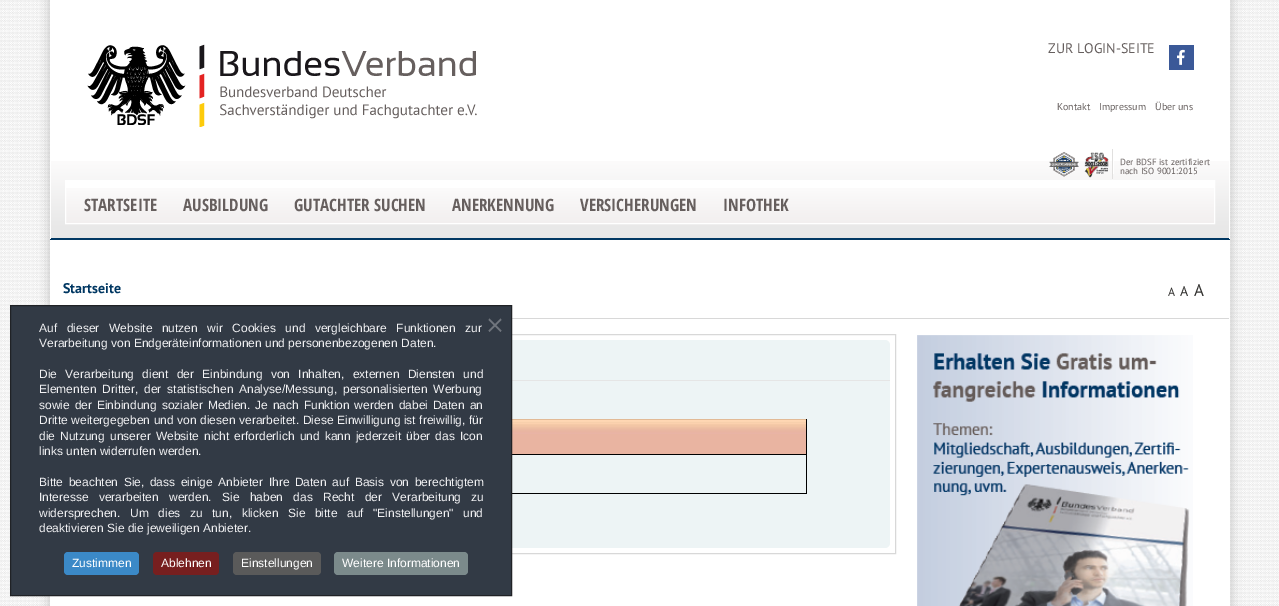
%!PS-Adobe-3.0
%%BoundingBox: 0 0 1279 606
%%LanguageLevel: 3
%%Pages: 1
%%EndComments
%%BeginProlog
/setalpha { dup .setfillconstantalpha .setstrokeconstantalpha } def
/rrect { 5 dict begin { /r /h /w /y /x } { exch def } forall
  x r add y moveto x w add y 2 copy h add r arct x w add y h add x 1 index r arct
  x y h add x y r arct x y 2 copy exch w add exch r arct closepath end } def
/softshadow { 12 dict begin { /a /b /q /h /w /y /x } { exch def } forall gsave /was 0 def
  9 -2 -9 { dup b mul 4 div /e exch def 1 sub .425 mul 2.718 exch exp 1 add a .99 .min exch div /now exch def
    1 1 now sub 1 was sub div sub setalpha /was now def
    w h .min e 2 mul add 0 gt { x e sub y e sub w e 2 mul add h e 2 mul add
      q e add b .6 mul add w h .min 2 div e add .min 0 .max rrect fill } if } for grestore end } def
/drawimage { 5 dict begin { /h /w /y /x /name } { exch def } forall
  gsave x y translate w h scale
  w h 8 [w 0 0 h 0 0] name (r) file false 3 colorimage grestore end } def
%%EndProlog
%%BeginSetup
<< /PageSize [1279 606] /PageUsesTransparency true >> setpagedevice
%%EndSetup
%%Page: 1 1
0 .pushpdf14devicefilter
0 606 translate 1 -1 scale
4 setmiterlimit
1 setgray
0 0 1279 606 rectfill
(images/1.raw) 0 0 1279 606 drawimage
0 setgray
49 -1 1182 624 0 5.5 0.18 softshadow
1 setgray
50 0 1180 606 rectfill
(images/2.raw) 51 161 1178 77 drawimage
0 0.216 0.384 setrgbcolor
51 238 1178 1 rectfill
(images/3.raw) 87 44 390 83 drawimage
0.231 0.349 0.596 setrgbcolor
1169 45 25 25 rectfill
(images/4.raw) 1177 49 8 16 drawimage
(images/5.raw) 1049 149 65 30 drawimage
1 setgray
66 181 1148 7 rectfill
(images/6.raw) 66 188 1148 35 drawimage
65.5 180.5 1149 43 rectstroke
0 0.216 0.384 setrgbcolor
50 239 1180 1 rectfill
0.847 setgray
512 318 717 1 rectfill
59.5 334.5 836 219 rectstroke
0.929 0.957 0.961 setrgbcolor
65 340 825 208 5 rrect fill
0.898 setgray
512 380 378 1 rectfill
0 setgray
806 419 1 75 rectfill
512 493 295 1 rectfill
0.914 0.706 0.631 setrgbcolor
512 434 294 20 rectfill
(images/7.raw) 512 419 294 15 drawimage
0 setgray
512 454 295 1 rectfill
(images/8.raw) 917 335 276 271 drawimage
0.196 0.227 0.271 setrgbcolor
newpath 10.5 305.5 moveto 511.5 305.5 lineto 511.5 595.5 lineto 10.5 595.5 lineto closepath gsave fill grestore
0.125 0.133 0.149 setrgbcolor
stroke
0.439 0.459 0.49 setrgbcolor
newpath 500.5 318.5 moveto 501.5 320 lineto 489.5 332 lineto 488.5 330.5 lineto closepath fill
newpath 488.5 320 moveto 489.5 318.5 lineto 501.5 330.5 lineto 500.5 332 lineto closepath fill
0.231 0.537 0.78 setrgbcolor
64 552 75 23 4 rrect fill
0.467 0.122 0.122 setrgbcolor
153 552 66 23 4 rrect fill
0.353 setgray
233 552 88 23 4 rrect fill
0.482 0.541 0.545 setrgbcolor
334 552 134 23 4 rrect fill
/PTSans-Regular [14 0 0 -14 0 0] selectfont
0.4 0.373 0.369 setrgbcolor
1048 53 moveto (ZUR LOGIN-SEITE) show
/PTSans-Regular [10 0 0 -10 0 0] selectfont
1057 110 moveto (Kontakt) show
1099 110 moveto (Impressum) show
1155 110 moveto (Über uns) show
/PTSans-Regular [9 0 0 -9 0 0] selectfont
1120 165 moveto (Der BDSF ist zertifiziert) show
1120 174 moveto (nach ISO 9001:2015) show
/OpenSansCondensed-Bold [17 0 0 -17 0 0] selectfont
84 211 moveto (STARTSEITE) show
183 211 moveto (AUSBILDUNG) show
294 211 moveto (GUTACHTER SUCHEN) show
452 211 moveto (ANERKENNUNG) show
580 211 moveto (VERSICHERUNGEN) show
723 211 moveto (INFOTHEK) show
/PTSans-Bold [14 0 0 -14 0 0] selectfont
0 0.216 0.384 setrgbcolor
63 293 moveto (Startseite) show
/PTSans-Regular [12 0 0 -12 0 0] selectfont
0.192 0.188 0.18 setrgbcolor
1168 296 moveto (A) show
/PTSans-Regular [14 0 0 -14 0 0] selectfont
1180 296 moveto (A) show
/PTSans-Regular [17 0 0 -17 0 0] selectfont
1194 296 moveto (A) show
/LiberationSans-Regular [12 0 0 -12 0 0] selectfont
0.945 0.945 0.953 setrgbcolor
39 332 moveto 6.25 0 32 (Auf dieser Website nutzen wir Cookies und vergleichbare Funktionen zur) widthshow
39 347 moveto (Verarbeitung von Endgeräteinformationen und personenbezogenen Daten.) show
39 378 moveto 5 0 32 (Die Verarbeitung dient der Einbindung von Inhalten, externen Diensten und) widthshow
39 393 moveto 2.5 0 32 (Elementen Dritter, der statistischen Analyse/Messung, personalisierten Werbung) widthshow
39 409 moveto 1.5 0 32 (sowie der Einbindung sozialer Medien. Je nach Funktion werden dabei Daten an) widthshow
39 424 moveto 0.25 0 32 (Dritte weitergegeben und von diesen verarbeitet. Diese Einwilligung ist freiwillig, für) widthshow
39 440 moveto 1.75 0 32 (die Nutzung unserer Website nicht erforderlich und kann jederzeit über das Icon) widthshow
39 455 moveto (links unten widerrufen werden.) show
39 486 moveto 2.25 0 32 (Bitte beachten Sie, dass einige Anbieter Ihre Daten auf Basis von berechtigtem) widthshow
39 501 moveto 7 0 32 (Interesse verarbeiten werden. Sie haben das Recht der Verarbeitung zu) widthshow
39 517 moveto 6.25 0 32 (widersprechen. Um dies zu tun, klicken Sie bitte auf) widthshow
373 517 moveto ("Einstellungen") show
463 517 moveto (und) show
39 532 moveto (deaktivieren Sie die jeweiligen Anbieter.) show
1 setgray
72 567 moveto (Zustimmen) show
161 567 moveto (Ablehnen) show
241 567 moveto (Einstellungen) show
342 567 moveto (Weitere Informationen) show
.poppdf14devicefilter showpage
%%EOF
